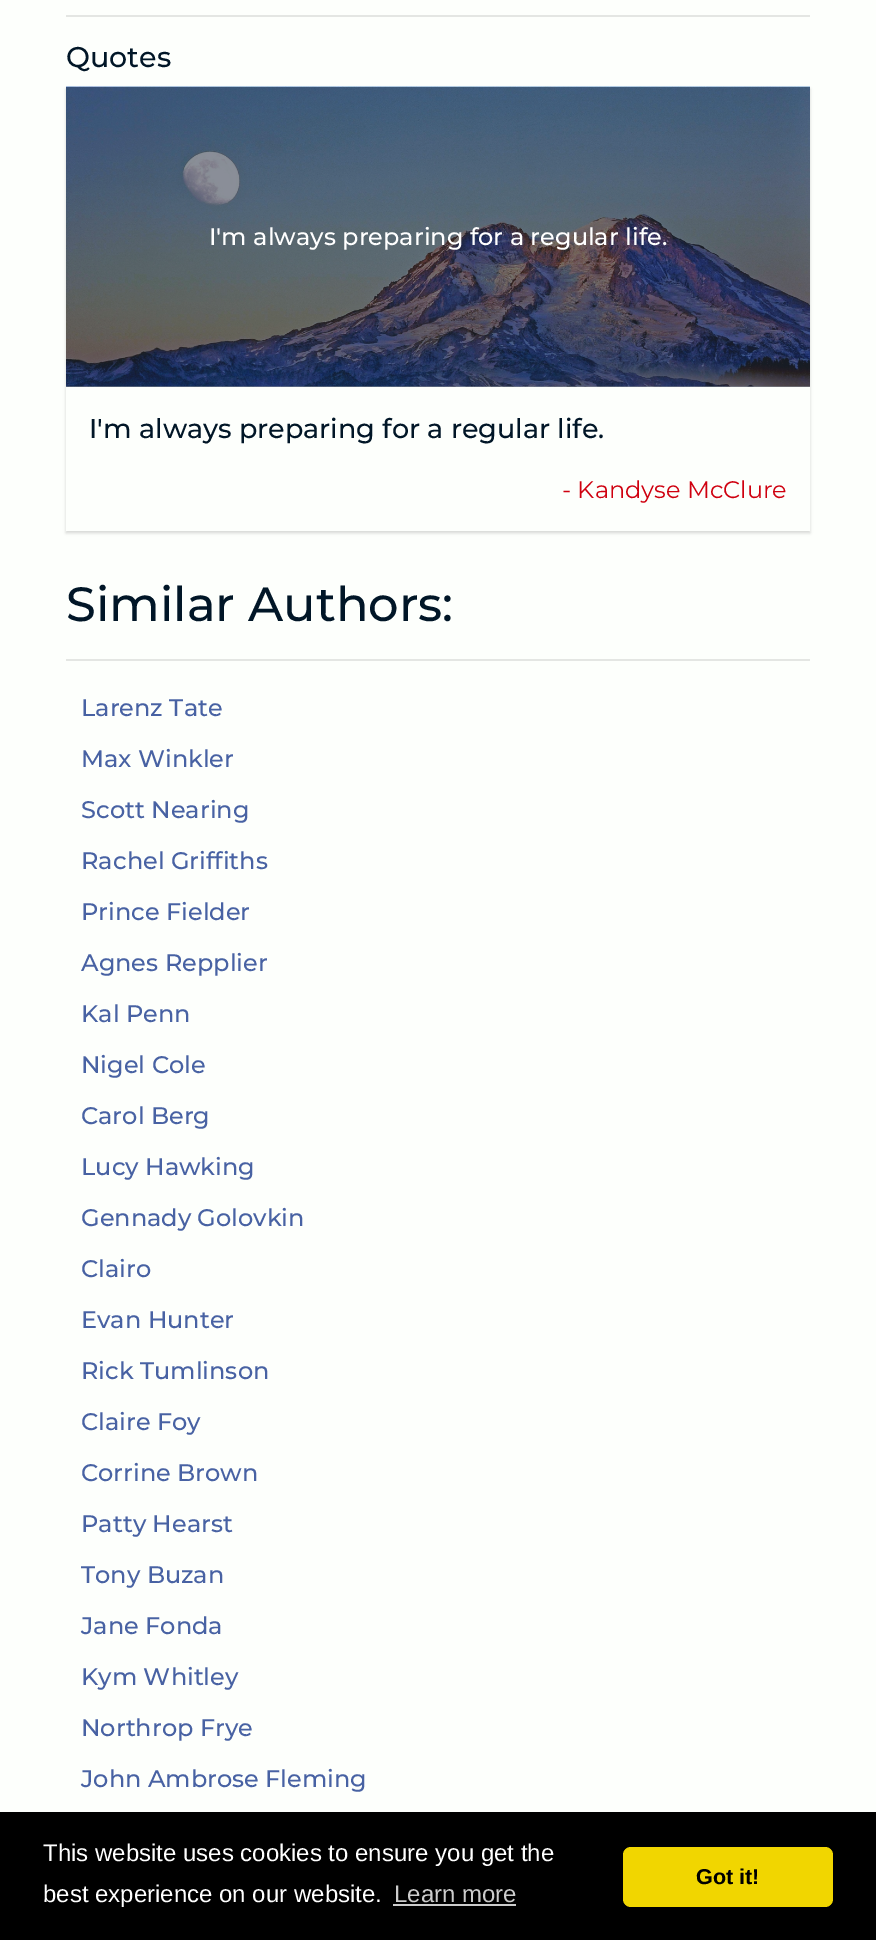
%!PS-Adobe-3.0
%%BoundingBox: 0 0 876 1940
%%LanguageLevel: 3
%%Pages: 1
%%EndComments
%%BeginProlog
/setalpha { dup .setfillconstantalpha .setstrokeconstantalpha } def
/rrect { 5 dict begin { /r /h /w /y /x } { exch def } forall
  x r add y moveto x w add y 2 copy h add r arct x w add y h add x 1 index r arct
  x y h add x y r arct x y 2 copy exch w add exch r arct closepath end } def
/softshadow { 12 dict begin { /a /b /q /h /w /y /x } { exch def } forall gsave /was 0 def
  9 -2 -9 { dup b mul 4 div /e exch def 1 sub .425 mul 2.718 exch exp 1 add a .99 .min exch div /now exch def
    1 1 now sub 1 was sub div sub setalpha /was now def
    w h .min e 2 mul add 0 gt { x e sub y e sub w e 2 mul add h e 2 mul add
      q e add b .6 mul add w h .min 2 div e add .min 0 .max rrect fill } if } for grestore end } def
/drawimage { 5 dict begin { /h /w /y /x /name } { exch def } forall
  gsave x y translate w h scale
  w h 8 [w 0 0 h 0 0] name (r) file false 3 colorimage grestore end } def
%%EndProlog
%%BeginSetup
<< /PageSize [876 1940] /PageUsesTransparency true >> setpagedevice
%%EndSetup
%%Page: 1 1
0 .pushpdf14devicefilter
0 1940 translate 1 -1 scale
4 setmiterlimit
0.992 1 0.988 setrgbcolor
0 0 876 1940 rectfill
0.537 0.561 0.588 setrgbcolor
66 386 744 1 rectfill
0.894 0.902 0.89 setrgbcolor
66 15 744 2 rectfill
gsave
newpath 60 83 moveto 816 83 lineto 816 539 lineto 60 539 lineto closepath 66 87 moveto 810 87 lineto 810 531 lineto 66 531 lineto closepath eoclip newpath
0 setgray
66 89 744 444 0 1.5 0.15 softshadow
grestore
(images/1.raw) 66 86 744 301 drawimage
66 659 744 2 rectfill
0 setgray
0 1812 876 128 rectfill
0.8 setgray
393 1904 123 2 rectfill
0.945 0.839 0 setrgbcolor
623 1847 210 60 8 rrect fill
/Montserrat-Medium [28.5 0 0 -28.5 0 0] selectfont
0.004 0.086 0.153 setrgbcolor
66 67 moveto (Quotes) show
/Montserrat-Medium [24 0 0 -24 0 0] selectfont
1 setgray
209 245 moveto (I'm always preparing for a regular life.) show
/Montserrat-Medium [27 0 0 -27 0 0] selectfont
0.004 0.086 0.153 setrgbcolor
89 438 moveto (I'm always preparing for a regular life.) show
/Montserrat-Regular [24 0 0 -24 0 0] selectfont
0.812 0 0.059 setrgbcolor
562 498 moveto (- Kandyse McClure) show
/Montserrat-Medium [48 0 0 -48 0 0] selectfont
0.004 0.086 0.153 setrgbcolor
66 621 moveto (Similar Authors:) show
/Montserrat-Medium [24 0 0 -24 0 0] selectfont
0.282 0.384 0.639 setrgbcolor
81 716 moveto (Larenz Tate) show
81 767 moveto (Max Winkler) show
81 818 moveto (Scott Nearing) show
81 869 moveto (Rachel Griffiths) show
81 920 moveto (Prince Fielder) show
81 971 moveto (Agnes Repplier) show
81 1022 moveto (Kal Penn) show
81 1073 moveto (Nigel Cole) show
81 1124 moveto (Carol Berg) show
81 1175 moveto (Lucy Hawking) show
81 1226 moveto (Gennady Golovkin) show
81 1277 moveto (Clairo) show
81 1328 moveto (Evan Hunter) show
81 1379 moveto (Rick Tumlinson) show
81 1430 moveto (Claire Foy) show
81 1481 moveto (Corrine Brown) show
81 1532 moveto (Patty Hearst) show
81 1583 moveto (Tony Buzan) show
81 1634 moveto (Jane Fonda) show
81 1685 moveto (Kym Whitley) show
81 1736 moveto (Northrop Frye) show
81 1787 moveto (John Ambrose Fleming) show
/LiberationSans-Regular [24 0 0 -24 0 0] selectfont
1 setgray
43 1861 moveto (This website uses cookies to ensure you get the) show
43 1902 moveto (best experience on our website.) show
0.8 setgray
394 1902 moveto (Learn more) show
/LiberationSans-Bold [21.5 0 0 -21.5 0 0] selectfont
0 setgray
696 1884 moveto (Got it!) show
.poppdf14devicefilter showpage
%%EOF
